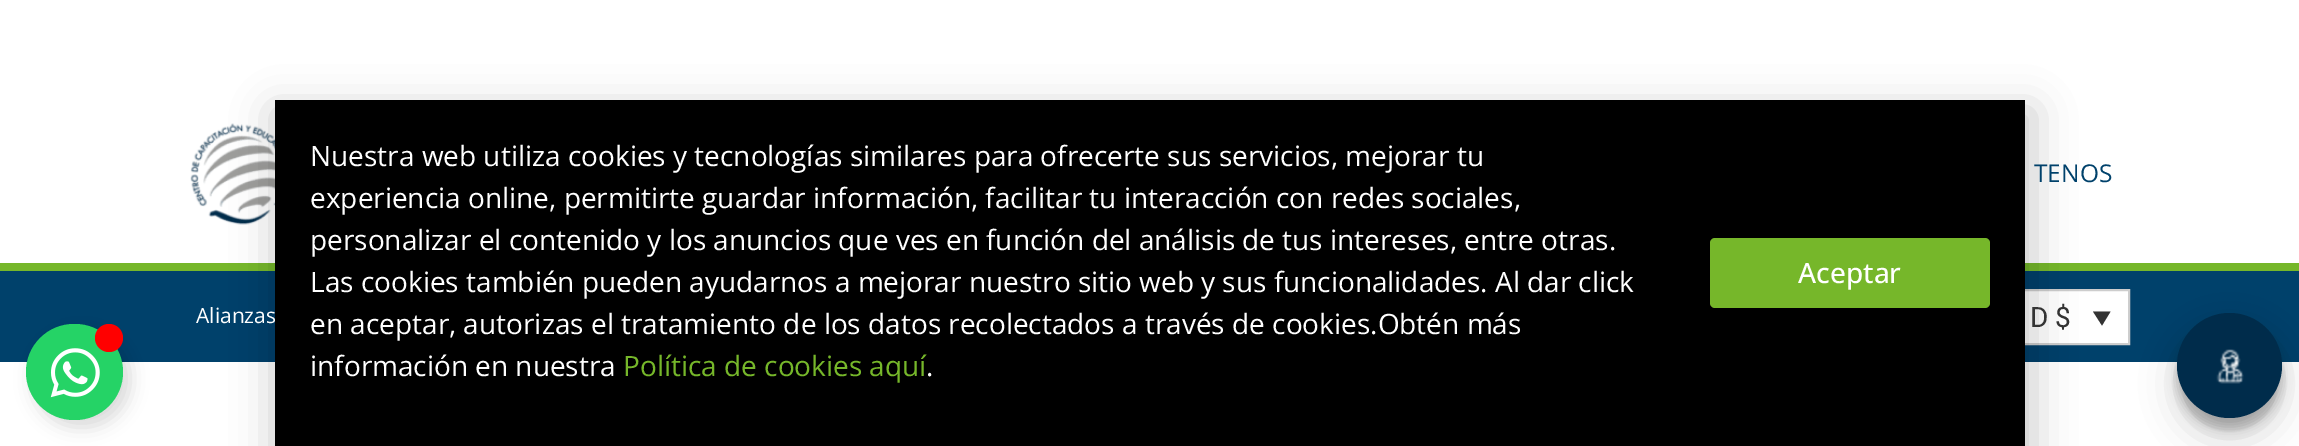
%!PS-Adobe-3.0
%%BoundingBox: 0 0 2299 446
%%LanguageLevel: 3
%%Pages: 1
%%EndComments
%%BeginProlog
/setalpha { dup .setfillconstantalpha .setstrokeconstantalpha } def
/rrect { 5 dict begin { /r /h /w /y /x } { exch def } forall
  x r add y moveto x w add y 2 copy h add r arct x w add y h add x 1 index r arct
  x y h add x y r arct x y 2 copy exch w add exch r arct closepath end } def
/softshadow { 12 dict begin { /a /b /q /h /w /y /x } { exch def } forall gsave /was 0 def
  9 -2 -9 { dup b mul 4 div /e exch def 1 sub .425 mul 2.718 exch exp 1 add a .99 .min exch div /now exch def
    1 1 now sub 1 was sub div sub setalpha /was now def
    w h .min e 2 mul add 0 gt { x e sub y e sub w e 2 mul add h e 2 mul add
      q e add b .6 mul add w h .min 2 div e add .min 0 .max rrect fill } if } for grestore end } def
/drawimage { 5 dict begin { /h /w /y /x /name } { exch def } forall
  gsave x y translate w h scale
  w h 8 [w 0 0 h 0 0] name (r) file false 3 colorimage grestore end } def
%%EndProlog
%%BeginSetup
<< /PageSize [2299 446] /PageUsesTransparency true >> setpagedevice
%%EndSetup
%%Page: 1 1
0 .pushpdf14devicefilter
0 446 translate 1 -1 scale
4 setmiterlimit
1 setgray
0 0 2299 446 rectfill
(images/1.raw) 190 123 85 102 drawimage
0 0.255 0.42 setrgbcolor
0 271 2299 91 rectfill
0.463 0.718 0.165 setrgbcolor
0 263 2299 8 rectfill
1 setgray
2025 291 103 52 rectfill
0.804 setgray
2 setlinewidth
1980 290 149 54 rectstroke
0.2 setgray
newpath 2093 311.5 moveto 2110.5 311.5 lineto 2102 325.5 lineto closepath fill
0 setgray
273 109 1761 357 0 20 0.2 softshadow
275 100 1750 346 rectfill
0.463 0.718 0.165 setrgbcolor
1710 238 280 70 5 rrect fill
0 setgray
33 331 97 96 48 9 0.15 softshadow
0.145 0.827 0.4 setrgbcolor
26 324 97 96 48 rrect fill
(images/2.raw) 50 348 50 50 drawimage
1 0 0 setrgbcolor
newpath 109 338 14 0 360 arc closepath fill
0 setgray
2177 324 105 105 52.5 5 0.23 softshadow
2177 331 105 105 52.5 17.5 0.19 softshadow
0 0.173 0.294 setrgbcolor
newpath 2229.5 365.5 52.5 0 360 arc closepath fill
(images/3.raw) 2216 349 28 35 drawimage
/OpenSans-Regular [28 0 0 -28 0 0] selectfont
1 setgray
310 166 moveto (Nuestra web utiliza cookies y tecnologías similares para ofrecerte sus servicios, mejorar tu) show
310 208 moveto (experiencia online, permitirte guardar información, facilitar tu interacción con redes sociales,) show
310 250 moveto (personalizar el contenido y los anuncios que ves en función del análisis de tus intereses, entre otras.) show
310 292 moveto (Las cookies también pueden ayudarnos a mejorar nuestro sitio web y sus funcionalidades. Al dar click) show
310 334 moveto (en aceptar, autorizas el tratamiento de los datos recolectados a través de cookies.Obtén más) show
310 376 moveto (información en nuestra) show
0.463 0.718 0.165 setrgbcolor
623 376 moveto (Política de cookies aquí) show
1 setgray
926 376 moveto (.) show
/OpenSans-Medium [28 0 0 -28 0 0] selectfont
1798 283 moveto (Aceptar) show
/OpenSans-Regular [24.5 0 0 -24.5 0 0] selectfont
0 0.255 0.42 setrgbcolor
2034 182 moveto (TENOS) show
/OpenSans-Regular [21 0 0 -21 0 0] selectfont
1 setgray
196 323 moveto (Alianzas) show
/Roboto-Regular [28 0 0 -28 0 0] selectfont
0.2 setgray
2030 327 moveto (D $) show
.poppdf14devicefilter showpage
%%EOF
